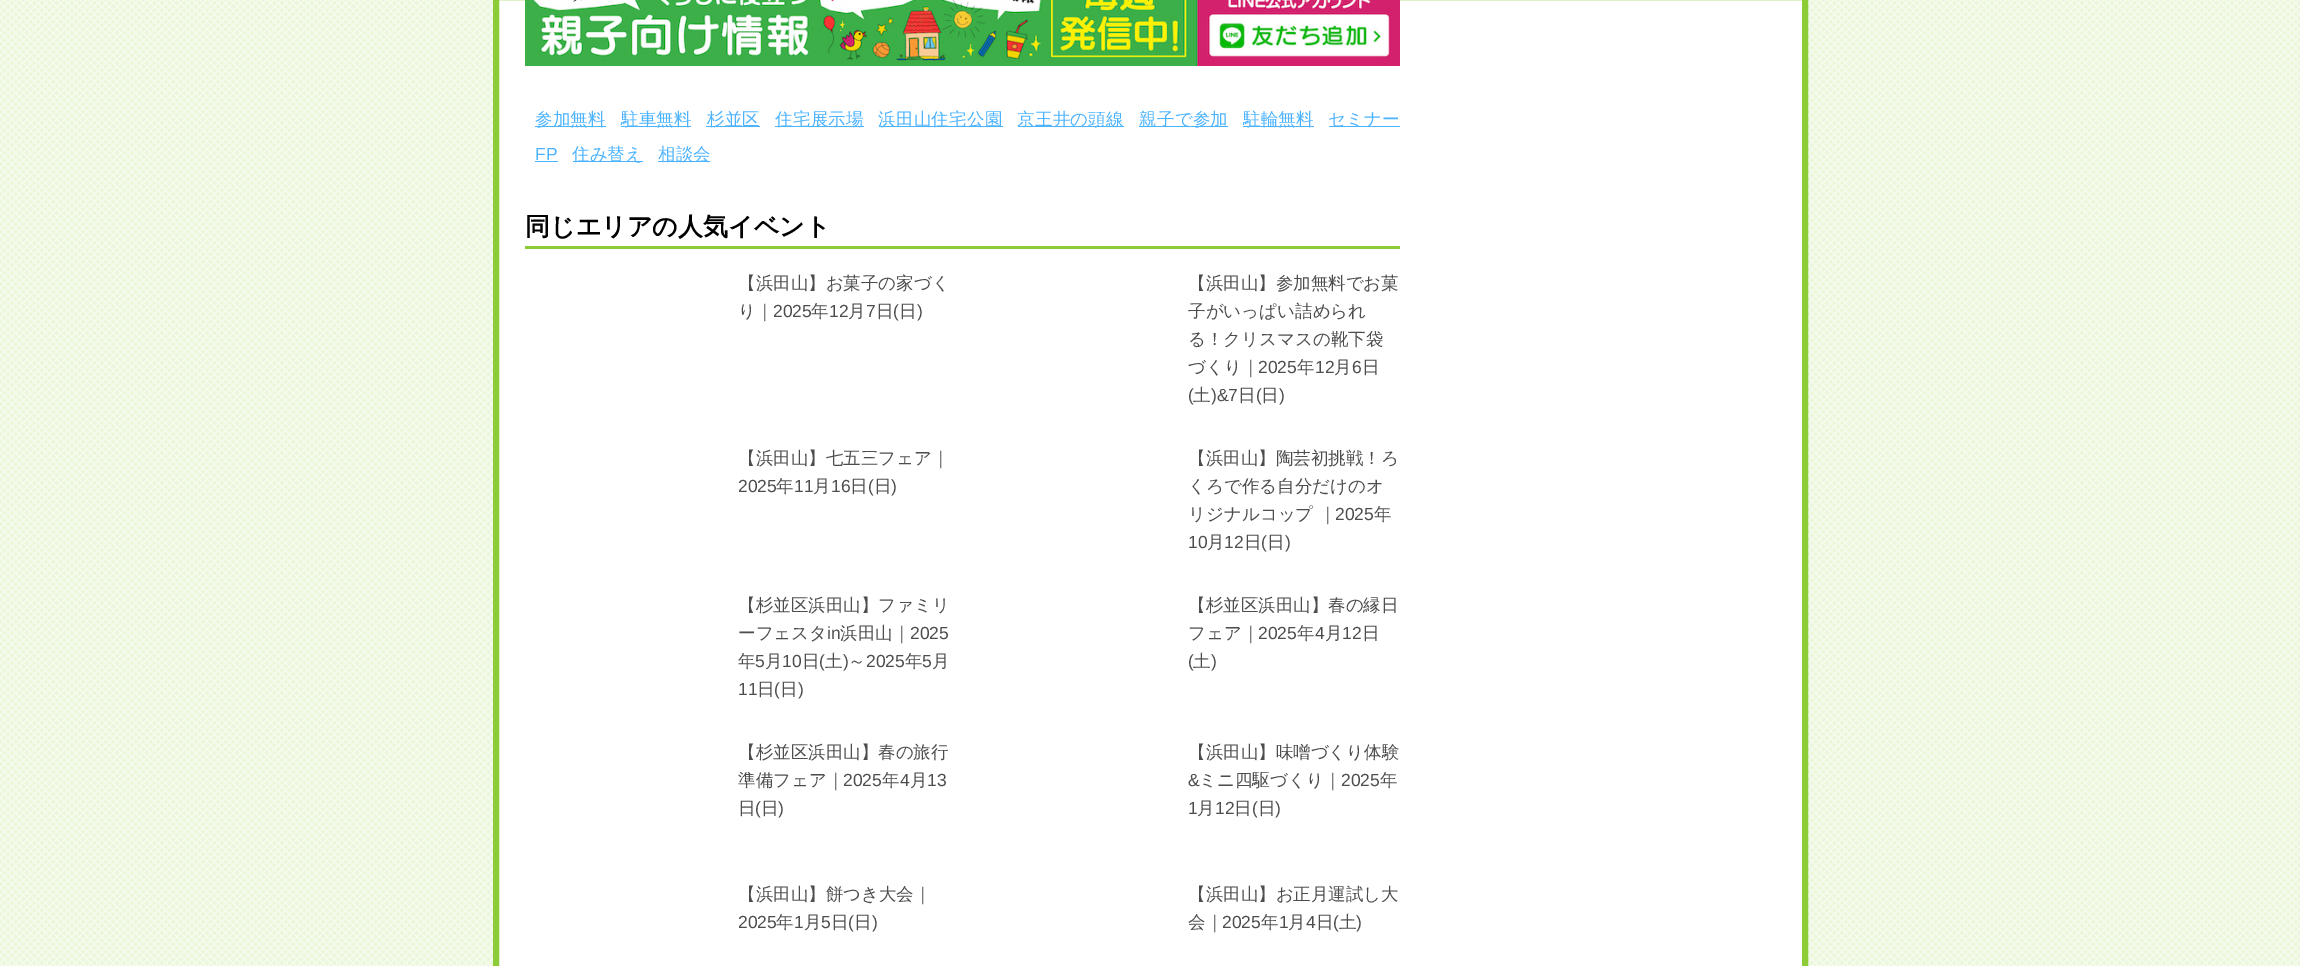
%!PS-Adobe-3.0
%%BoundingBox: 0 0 2300 966
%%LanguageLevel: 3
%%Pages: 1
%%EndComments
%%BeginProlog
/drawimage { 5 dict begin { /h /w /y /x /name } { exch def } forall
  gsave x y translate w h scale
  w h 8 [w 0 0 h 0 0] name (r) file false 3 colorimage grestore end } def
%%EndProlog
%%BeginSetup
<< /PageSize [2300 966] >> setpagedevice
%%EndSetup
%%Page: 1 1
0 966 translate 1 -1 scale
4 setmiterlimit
1 setgray
0 0 2300 966 rectfill
(images/1.raw) 0 0 2300 966 drawimage
newpath 496 -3 moveto 1805 -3 lineto 1805 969 lineto 496 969 lineto closepath gsave fill grestore
0.545 0.8 0.216 setrgbcolor
6 setlinewidth
stroke
(images/2.raw) 525 0 875 66 drawimage
0.298 0.702 1 setrgbcolor
535 126 71 1 rectfill
621 126 70 1 rectfill
706 126 54 1 rectfill
775 126 89 1 rectfill
879 126 124 1 rectfill
1018 126 106 1 rectfill
1139 126 89 1 rectfill
1243 126 71 1 rectfill
1329 126 71 1 rectfill
535 161 23 1 rectfill
573 161 70 1 rectfill
658 161 52 1 rectfill
0.545 0.8 0.216 setrgbcolor
525 246 875 3 rectfill
/WenQuanYiZenHei-Medium [17.5 0 0 -17.5 0 0] selectfont
0.298 0.702 1 setrgbcolor
535 125 moveto (参加無料) show
621 125 moveto (駐車無料) show
707 125 moveto (杉並区) show
775 125 moveto 0.25 0 (住宅展示場) ashow
878 125 moveto 0.25 0 (浜田山住宅公園) ashow
1017 125 moveto 0.25 0 (京王井の頭線) ashow
1139 125 moveto 0.25 0 (親子で参加) ashow
1243 125 moveto (駐輪無料) show
1328 125 moveto (セミナー) show
/LiberationSans-Regular [17.5 0 0 -17.5 0 0] selectfont
535 160 moveto (FP) show
/WenQuanYiZenHei-Medium [17.5 0 0 -17.5 0 0] selectfont
572 160 moveto (住み替え) show
658 160 moveto (相談会) show
/WenQuanYiZenHei-Bold [25 0 0 -25 0 0] selectfont
0 setgray
525 235 moveto (同じエリアの人気イベント) show
/WenQuanYiZenHei-Medium [17.5 0 0 -17.5 0 0] selectfont
0.302 setgray
738 289 moveto (【浜田山】お菓子の家づく) show
738 317 moveto (り｜) show
/LiberationSans-Regular [17.5 0 0 -17.5 0 0] selectfont
773 317 moveto (2025) show
/WenQuanYiZenHei-Medium [17.5 0 0 -17.5 0 0] selectfont
811 317 moveto (年) show
/LiberationSans-Regular [17.5 0 0 -17.5 0 0] selectfont
829 317 moveto (12) show
/WenQuanYiZenHei-Medium [17.5 0 0 -17.5 0 0] selectfont
848 317 moveto (月) show
/LiberationSans-Regular [17.5 0 0 -17.5 0 0] selectfont
866 317 moveto (7) show
/WenQuanYiZenHei-Medium [17.5 0 0 -17.5 0 0] selectfont
876 317 moveto (日) show
/LiberationSans-Regular [17.5 0 0 -17.5 0 0] selectfont
893 317 moveto (\() show
/WenQuanYiZenHei-Medium [17.5 0 0 -17.5 0 0] selectfont
899 317 moveto (日) show
/LiberationSans-Regular [17.5 0 0 -17.5 0 0] selectfont
917 317 moveto (\)) show
/WenQuanYiZenHei-Medium [17.5 0 0 -17.5 0 0] selectfont
1188 289 moveto (【浜田山】参加無料でお菓) show
1188 317 moveto (子がいっぱい詰められ) show
1188 345 moveto (る！クリスマスの靴下袋) show
1188 373 moveto (づくり｜) show
/LiberationSans-Regular [17.5 0 0 -17.5 0 0] selectfont
1258 373 moveto (2025) show
/WenQuanYiZenHei-Medium [17.5 0 0 -17.5 0 0] selectfont
1297 373 moveto (年) show
/LiberationSans-Regular [17.5 0 0 -17.5 0 0] selectfont
1315 373 moveto (12) show
/WenQuanYiZenHei-Medium [17.5 0 0 -17.5 0 0] selectfont
1334 373 moveto (月) show
/LiberationSans-Regular [17.5 0 0 -17.5 0 0] selectfont
1352 373 moveto (6) show
/WenQuanYiZenHei-Medium [17.5 0 0 -17.5 0 0] selectfont
1362 373 moveto (日) show
/LiberationSans-Regular [17.5 0 0 -17.5 0 0] selectfont
1188 401 moveto (\() show
/WenQuanYiZenHei-Medium [17.5 0 0 -17.5 0 0] selectfont
1193 401 moveto (土) show
/LiberationSans-Regular [17.5 0 0 -17.5 0 0] selectfont
1211 401 moveto (\)&7) show
/WenQuanYiZenHei-Medium [17.5 0 0 -17.5 0 0] selectfont
1238 401 moveto (日) show
/LiberationSans-Regular [17.5 0 0 -17.5 0 0] selectfont
1256 401 moveto (\() show
/WenQuanYiZenHei-Medium [17.5 0 0 -17.5 0 0] selectfont
1261 401 moveto (日) show
/LiberationSans-Regular [17.5 0 0 -17.5 0 0] selectfont
1279 401 moveto (\)) show
/WenQuanYiZenHei-Medium [17.5 0 0 -17.5 0 0] selectfont
738 464 moveto (【浜田山】七五三フェア｜) show
/LiberationSans-Regular [17.5 0 0 -17.5 0 0] selectfont
738 492 moveto (2025) show
/WenQuanYiZenHei-Medium [17.5 0 0 -17.5 0 0] selectfont
776 492 moveto (年) show
/LiberationSans-Regular [17.5 0 0 -17.5 0 0] selectfont
794 492 moveto (11) show
/WenQuanYiZenHei-Medium [17.5 0 0 -17.5 0 0] selectfont
813 492 moveto (月) show
/LiberationSans-Regular [17.5 0 0 -17.5 0 0] selectfont
831 492 moveto (16) show
/WenQuanYiZenHei-Medium [17.5 0 0 -17.5 0 0] selectfont
850 492 moveto (日) show
/LiberationSans-Regular [17.5 0 0 -17.5 0 0] selectfont
868 492 moveto (\() show
/WenQuanYiZenHei-Medium [17.5 0 0 -17.5 0 0] selectfont
874 492 moveto (日) show
/LiberationSans-Regular [17.5 0 0 -17.5 0 0] selectfont
891 492 moveto (\)) show
/WenQuanYiZenHei-Medium [17.5 0 0 -17.5 0 0] selectfont
1188 464 moveto (【浜田山】陶芸初挑戦！ろ) show
1188 492 moveto (くろで作る自分だけのオ) show
1188 520 moveto (リジナルコップ ｜) show
/LiberationSans-Regular [17.5 0 0 -17.5 0 0] selectfont
1335 520 moveto (2025) show
/WenQuanYiZenHei-Medium [17.5 0 0 -17.5 0 0] selectfont
1374 520 moveto (年) show
/LiberationSans-Regular [17.5 0 0 -17.5 0 0] selectfont
1188 548 moveto (10) show
/WenQuanYiZenHei-Medium [17.5 0 0 -17.5 0 0] selectfont
1207 548 moveto (月) show
/LiberationSans-Regular [17.5 0 0 -17.5 0 0] selectfont
1224 548 moveto (12) show
/WenQuanYiZenHei-Medium [17.5 0 0 -17.5 0 0] selectfont
1244 548 moveto (日) show
/LiberationSans-Regular [17.5 0 0 -17.5 0 0] selectfont
1261 548 moveto (\() show
/WenQuanYiZenHei-Medium [17.5 0 0 -17.5 0 0] selectfont
1267 548 moveto (日) show
/LiberationSans-Regular [17.5 0 0 -17.5 0 0] selectfont
1285 548 moveto (\)) show
/WenQuanYiZenHei-Medium [17.5 0 0 -17.5 0 0] selectfont
738 611 moveto (【杉並区浜田山】ファミリ) show
738 639 moveto (ーフェスタ) show
/LiberationSans-Regular [17.5 0 0 -17.5 0 0] selectfont
827 639 moveto (in) show
/WenQuanYiZenHei-Medium [17.5 0 0 -17.5 0 0] selectfont
840 639 moveto (浜田山｜) show
/LiberationSans-Regular [17.5 0 0 -17.5 0 0] selectfont
910 639 moveto (2025) show
/WenQuanYiZenHei-Medium [17.5 0 0 -17.5 0 0] selectfont
738 667 moveto (年) show
/LiberationSans-Regular [17.5 0 0 -17.5 0 0] selectfont
755 667 moveto (5) show
/WenQuanYiZenHei-Medium [17.5 0 0 -17.5 0 0] selectfont
765 667 moveto (月) show
/LiberationSans-Regular [17.5 0 0 -17.5 0 0] selectfont
782 667 moveto (10) show
/WenQuanYiZenHei-Medium [17.5 0 0 -17.5 0 0] selectfont
802 667 moveto (日) show
/LiberationSans-Regular [17.5 0 0 -17.5 0 0] selectfont
819 667 moveto (\() show
/WenQuanYiZenHei-Medium [17.5 0 0 -17.5 0 0] selectfont
825 667 moveto (土) show
/LiberationSans-Regular [17.5 0 0 -17.5 0 0] selectfont
843 667 moveto (\)) show
/WenQuanYiZenHei-Medium [17.5 0 0 -17.5 0 0] selectfont
848 667 moveto (～) show
/LiberationSans-Regular [17.5 0 0 -17.5 0 0] selectfont
866 667 moveto (2025) show
/WenQuanYiZenHei-Medium [17.5 0 0 -17.5 0 0] selectfont
905 667 moveto (年) show
/LiberationSans-Regular [17.5 0 0 -17.5 0 0] selectfont
922 667 moveto (5) show
/WenQuanYiZenHei-Medium [17.5 0 0 -17.5 0 0] selectfont
932 667 moveto (月) show
/LiberationSans-Regular [17.5 0 0 -17.5 0 0] selectfont
738 695 moveto (11) show
/WenQuanYiZenHei-Medium [17.5 0 0 -17.5 0 0] selectfont
757 695 moveto (日) show
/LiberationSans-Regular [17.5 0 0 -17.5 0 0] selectfont
774 695 moveto (\() show
/WenQuanYiZenHei-Medium [17.5 0 0 -17.5 0 0] selectfont
780 695 moveto (日) show
/LiberationSans-Regular [17.5 0 0 -17.5 0 0] selectfont
798 695 moveto (\)) show
/WenQuanYiZenHei-Medium [17.5 0 0 -17.5 0 0] selectfont
1188 611 moveto (【杉並区浜田山】春の縁日) show
1188 639 moveto (フェア｜) show
/LiberationSans-Regular [17.5 0 0 -17.5 0 0] selectfont
1258 639 moveto (2025) show
/WenQuanYiZenHei-Medium [17.5 0 0 -17.5 0 0] selectfont
1297 639 moveto (年) show
/LiberationSans-Regular [17.5 0 0 -17.5 0 0] selectfont
1315 639 moveto (4) show
/WenQuanYiZenHei-Medium [17.5 0 0 -17.5 0 0] selectfont
1325 639 moveto (月) show
/LiberationSans-Regular [17.5 0 0 -17.5 0 0] selectfont
1342 639 moveto (12) show
/WenQuanYiZenHei-Medium [17.5 0 0 -17.5 0 0] selectfont
1362 639 moveto (日) show
/LiberationSans-Regular [17.5 0 0 -17.5 0 0] selectfont
1188 667 moveto (\() show
/WenQuanYiZenHei-Medium [17.5 0 0 -17.5 0 0] selectfont
1193 667 moveto (土) show
/LiberationSans-Regular [17.5 0 0 -17.5 0 0] selectfont
1211 667 moveto (\)) show
/WenQuanYiZenHei-Medium [17.5 0 0 -17.5 0 0] selectfont
738 758 moveto (【杉並区浜田山】春の旅行) show
738 786 moveto (準備フェア｜) show
/LiberationSans-Regular [17.5 0 0 -17.5 0 0] selectfont
843 786 moveto (2025) show
/WenQuanYiZenHei-Medium [17.5 0 0 -17.5 0 0] selectfont
882 786 moveto (年) show
/LiberationSans-Regular [17.5 0 0 -17.5 0 0] selectfont
900 786 moveto (4) show
/WenQuanYiZenHei-Medium [17.5 0 0 -17.5 0 0] selectfont
910 786 moveto (月) show
/LiberationSans-Regular [17.5 0 0 -17.5 0 0] selectfont
927 786 moveto (13) show
/WenQuanYiZenHei-Medium [17.5 0 0 -17.5 0 0] selectfont
738 814 moveto (日) show
/LiberationSans-Regular [17.5 0 0 -17.5 0 0] selectfont
755 814 moveto (\() show
/WenQuanYiZenHei-Medium [17.5 0 0 -17.5 0 0] selectfont
761 814 moveto (日) show
/LiberationSans-Regular [17.5 0 0 -17.5 0 0] selectfont
778 814 moveto (\)) show
/WenQuanYiZenHei-Medium [17.5 0 0 -17.5 0 0] selectfont
1188 758 moveto (【浜田山】味噌づくり体験) show
/LiberationSans-Regular [17.5 0 0 -17.5 0 0] selectfont
1188 786 moveto (&) show
/WenQuanYiZenHei-Medium [17.5 0 0 -17.5 0 0] selectfont
1199 786 moveto (ミニ四駆づくり｜) show
/LiberationSans-Regular [17.5 0 0 -17.5 0 0] selectfont
1341 786 moveto (2025) show
/WenQuanYiZenHei-Medium [17.5 0 0 -17.5 0 0] selectfont
1380 786 moveto (年) show
/LiberationSans-Regular [17.5 0 0 -17.5 0 0] selectfont
1188 814 moveto (1) show
/WenQuanYiZenHei-Medium [17.5 0 0 -17.5 0 0] selectfont
1197 814 moveto (月) show
/LiberationSans-Regular [17.5 0 0 -17.5 0 0] selectfont
1215 814 moveto (12) show
/WenQuanYiZenHei-Medium [17.5 0 0 -17.5 0 0] selectfont
1234 814 moveto (日) show
/LiberationSans-Regular [17.5 0 0 -17.5 0 0] selectfont
1252 814 moveto (\() show
/WenQuanYiZenHei-Medium [17.5 0 0 -17.5 0 0] selectfont
1258 814 moveto (日) show
/LiberationSans-Regular [17.5 0 0 -17.5 0 0] selectfont
1275 814 moveto (\)) show
/WenQuanYiZenHei-Medium [17.5 0 0 -17.5 0 0] selectfont
738 900 moveto (【浜田山】餅つき大会｜) show
/LiberationSans-Regular [17.5 0 0 -17.5 0 0] selectfont
738 928 moveto (2025) show
/WenQuanYiZenHei-Medium [17.5 0 0 -17.5 0 0] selectfont
776 928 moveto (年) show
/LiberationSans-Regular [17.5 0 0 -17.5 0 0] selectfont
794 928 moveto (1) show
/WenQuanYiZenHei-Medium [17.5 0 0 -17.5 0 0] selectfont
804 928 moveto (月) show
/LiberationSans-Regular [17.5 0 0 -17.5 0 0] selectfont
821 928 moveto (5) show
/WenQuanYiZenHei-Medium [17.5 0 0 -17.5 0 0] selectfont
831 928 moveto (日) show
/LiberationSans-Regular [17.5 0 0 -17.5 0 0] selectfont
848 928 moveto (\() show
/WenQuanYiZenHei-Medium [17.5 0 0 -17.5 0 0] selectfont
854 928 moveto (日) show
/LiberationSans-Regular [17.5 0 0 -17.5 0 0] selectfont
872 928 moveto (\)) show
/WenQuanYiZenHei-Medium [17.5 0 0 -17.5 0 0] selectfont
1188 900 moveto (【浜田山】お正月運試し大) show
1188 928 moveto (会｜) show
/LiberationSans-Regular [17.5 0 0 -17.5 0 0] selectfont
1222 928 moveto (2025) show
/WenQuanYiZenHei-Medium [17.5 0 0 -17.5 0 0] selectfont
1261 928 moveto (年) show
/LiberationSans-Regular [17.5 0 0 -17.5 0 0] selectfont
1279 928 moveto (1) show
/WenQuanYiZenHei-Medium [17.5 0 0 -17.5 0 0] selectfont
1288 928 moveto (月) show
/LiberationSans-Regular [17.5 0 0 -17.5 0 0] selectfont
1306 928 moveto (4) show
/WenQuanYiZenHei-Medium [17.5 0 0 -17.5 0 0] selectfont
1316 928 moveto (日) show
/LiberationSans-Regular [17.5 0 0 -17.5 0 0] selectfont
1333 928 moveto (\() show
/WenQuanYiZenHei-Medium [17.5 0 0 -17.5 0 0] selectfont
1339 928 moveto (土) show
/LiberationSans-Regular [17.5 0 0 -17.5 0 0] selectfont
1356 928 moveto (\)) show
showpage
%%EOF
